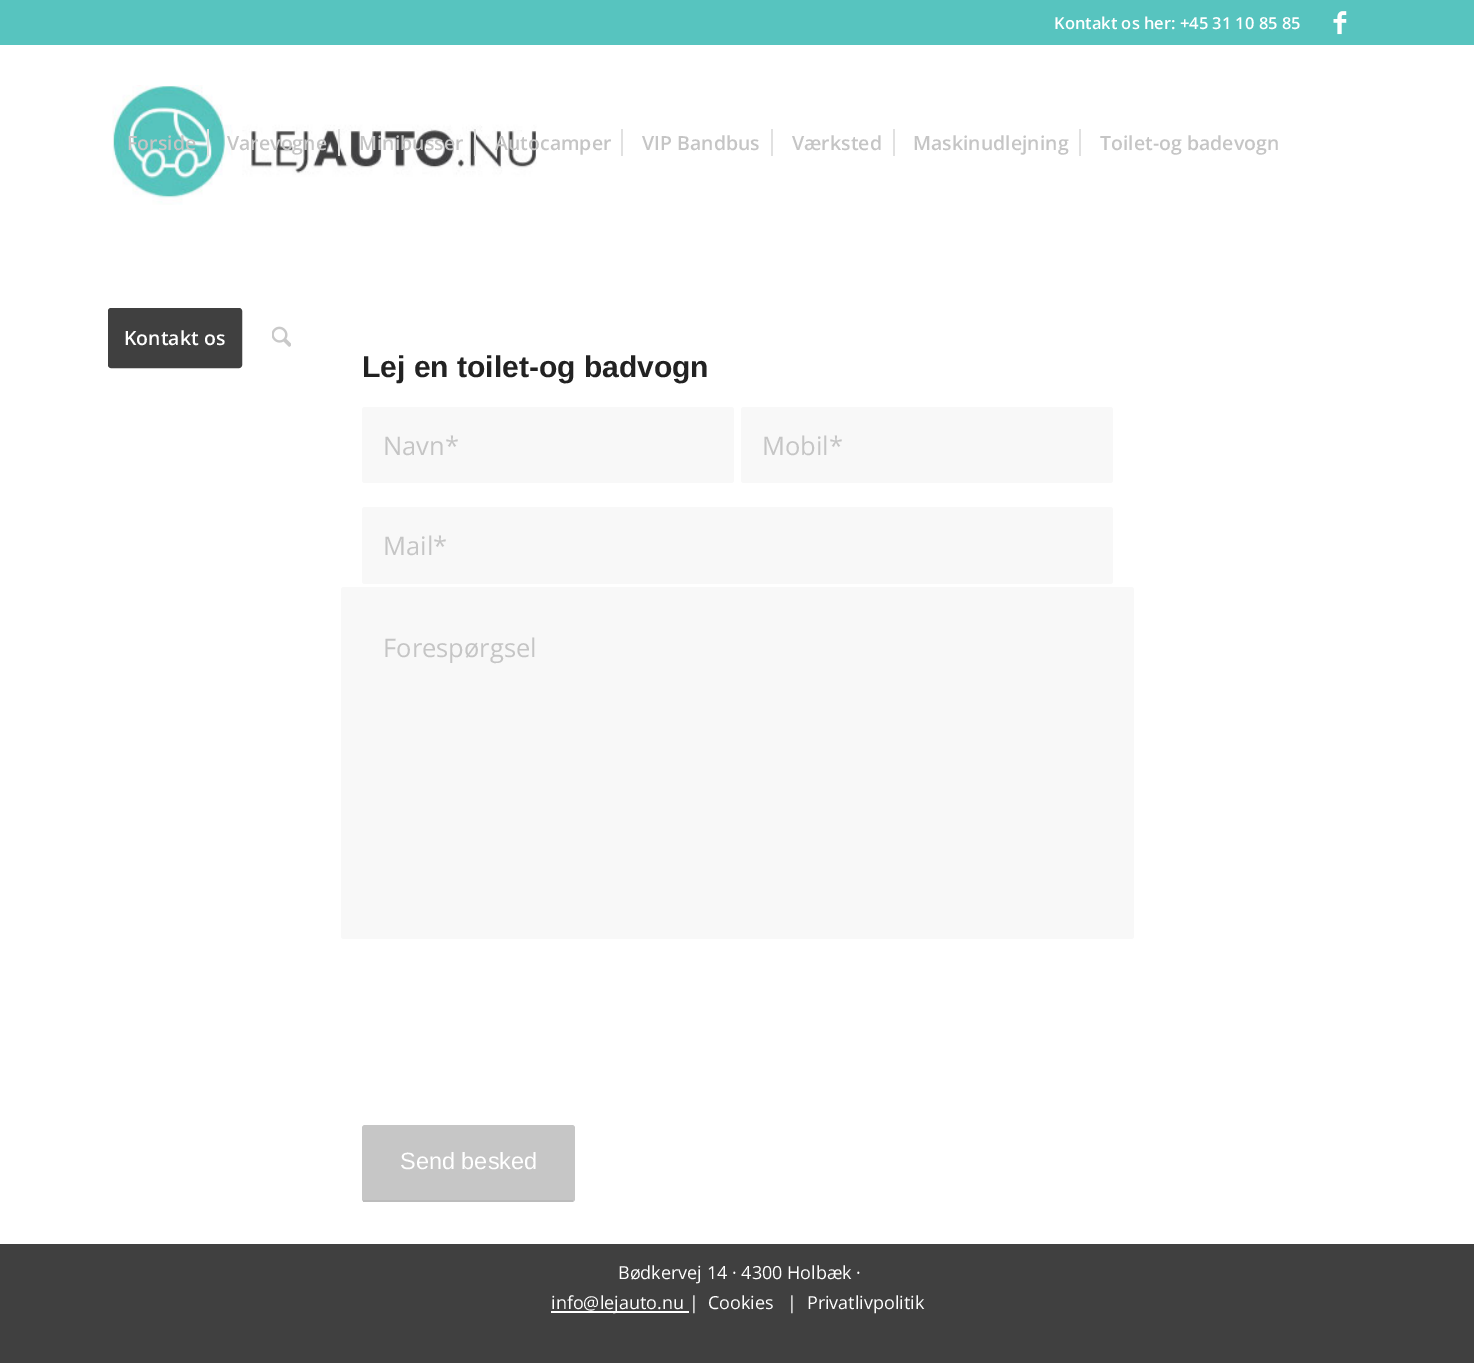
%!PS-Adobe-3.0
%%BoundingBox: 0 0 1474 1363
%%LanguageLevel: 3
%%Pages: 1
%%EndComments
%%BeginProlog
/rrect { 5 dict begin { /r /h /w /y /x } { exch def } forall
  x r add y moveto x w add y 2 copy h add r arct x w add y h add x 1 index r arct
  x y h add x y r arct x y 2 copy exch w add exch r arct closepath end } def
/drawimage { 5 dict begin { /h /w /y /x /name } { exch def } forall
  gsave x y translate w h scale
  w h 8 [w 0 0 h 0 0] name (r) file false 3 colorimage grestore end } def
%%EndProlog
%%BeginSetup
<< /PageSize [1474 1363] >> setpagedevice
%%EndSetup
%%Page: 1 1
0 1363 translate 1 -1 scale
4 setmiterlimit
1 setgray
0 0 1474 1363 rectfill
0.341 0.769 0.749 setrgbcolor
0 0 1474 45 rectfill
(images/1.raw) 1333 11 14 24 drawimage
(images/2.raw) 112 85 425 120 drawimage
0.882 setgray
207 129 2 27 rectfill
338 129 2 27 rectfill
474 129 2 27 rectfill
621 129 2 27 rectfill
771 129 2 27 rectfill
893 129 2 27 rectfill
1079 129 2 27 rectfill
0.251 setgray
109.5 309.5 131 57 1.5 rrect gsave fill grestore
3 setlinewidth
stroke
(images/3.raw) 272 326 19 21 drawimage
0.973 setgray
362 407 372 76 3 rrect fill
741 407 372 76 3 rrect fill
362 507 751 77 3 rrect fill
341 587 793 352 3 rrect fill
0.776 setgray
362 1125 213 77 3 rrect fill
0.737 setgray
363 1200 210 2 rectfill
0.251 setgray
0 1244 1474 119 rectfill
1 setgray
551 1311 138 2 rectfill
/OpenSans-SemiBold [16.5 0 0 -16.5 0 0] selectfont
1054 29 moveto (Kontakt os her: +45 31 10 85 85) show
/OpenSans-SemiBold [19.5 0 0 -19.5 0 0] selectfont
0.773 setgray
127 150 moveto (Forside) show
227 150 moveto (Varevogne) show
359 150 moveto (Minibusser) show
495 150 moveto (Autocamper) show
642 150 moveto (VIP Bandbus) show
792 150 moveto (Værksted) show
913 150 moveto (Maskinudlejning) show
1100 150 moveto (Toilet-og badevogn) show
1 setgray
124 345 moveto (Kontakt os) show
/LiberationSans-Bold [30 0 0 -30 0 0] selectfont
0.133 setgray
362 377 moveto (Lej en toilet-og badvogn) show
/OpenSans-Regular [25.5 0 0 -25.5 0 0] selectfont
0.773 setgray
383 455 moveto (Navn*) show
762 455 moveto (Mobil*) show
383 555 moveto (Mail*) show
383 657 moveto (Forespørgsel) show
/LiberationSans-Regular [23.5 0 0 -23.5 0 0] selectfont
1 setgray
400 1169 moveto (Send besked) show
/OpenSans-Regular [18 0 0 -18 0 0] selectfont
618 1279 moveto (Bødkervej 14 · 4300 Holbæk ·) show
551 1309 moveto (info@lejauto.nu |  Cookies   |  Privatlivpolitik) show
showpage
%%EOF
